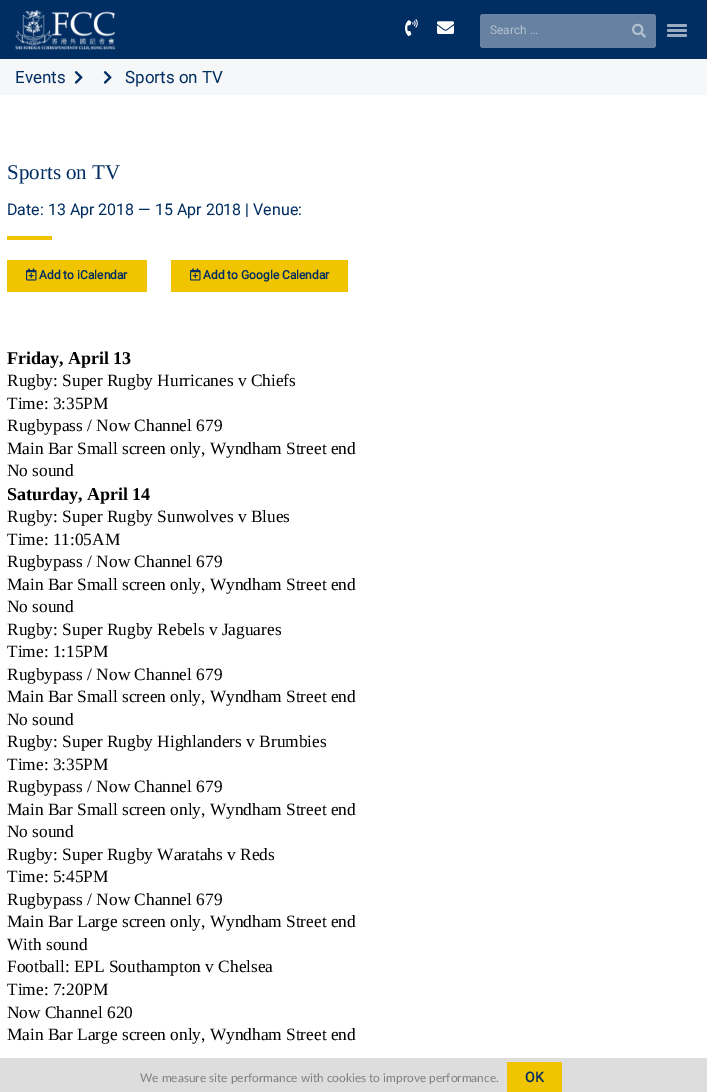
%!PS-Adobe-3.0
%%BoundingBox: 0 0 707 1092
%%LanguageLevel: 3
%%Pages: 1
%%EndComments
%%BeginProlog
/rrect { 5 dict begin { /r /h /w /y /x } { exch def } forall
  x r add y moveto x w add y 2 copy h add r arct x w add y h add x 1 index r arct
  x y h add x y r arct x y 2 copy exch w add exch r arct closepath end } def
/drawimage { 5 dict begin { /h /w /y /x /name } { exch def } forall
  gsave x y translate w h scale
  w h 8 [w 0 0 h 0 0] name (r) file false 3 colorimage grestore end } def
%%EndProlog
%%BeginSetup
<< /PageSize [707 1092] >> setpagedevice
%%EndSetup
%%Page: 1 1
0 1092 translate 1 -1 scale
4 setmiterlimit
1 setgray
0 0 707 1092 rectfill
0 0.176 0.384 setrgbcolor
0 0 707 59 rectfill
(images/1.raw) 15 10 100 40 drawimage
(images/2.raw) 405 19 13 18 drawimage
(images/3.raw) 437 21 17 13 drawimage
0.4 0.506 0.631 setrgbcolor
480 14 176 34 3 rrect fill
(images/4.raw) 632 23 14 15 drawimage
0.6 0.671 0.753 setrgbcolor
667 24 20 3 1.5 rrect fill
667 29 20 3 1.5 rrect fill
667 34 20 3 1.5 rrect fill
0.965 0.969 0.973 setrgbcolor
0 59 707 36 rectfill
(images/5.raw) 74 71 9 13 drawimage
(images/5.raw) 103 71 9 13 drawimage
0.945 0.769 0 setrgbcolor
7 236 45 4 rectfill
7 260 140 32 rectfill
(images/6.raw) 26 268 11 13 drawimage
171 260 177 32 rectfill
(images/6.raw) 190 268 11 13 drawimage
0.867 setgray
0 1058 707 34 rectfill
0.945 0.769 0 setrgbcolor
507 1062 55 30 rectfill
/Roboto-Regular [12 0 0 -12 0 0] selectfont
0.702 0.753 0.816 setrgbcolor
490 34 moveto (Search …) show
/Roboto-Regular [17 0 0 -17 0 0] selectfont
0 0.176 0.384 setrgbcolor
15 83 moveto (Events) show
125 83 moveto (Sports on TV) show
/LiberationSerif-Regular [21 0 0 -21 0 0] selectfont
7 179 moveto (Sports on TV) show
/Roboto-Regular [16 0 0 -16 0 0] selectfont
7 215 moveto (Date: 13 Apr 2018 — 15 Apr 2018 | Venue:) show
/Roboto-Bold [12 0 0 -12 0 0] selectfont
39 279 moveto (Add to iCalendar) show
203 279 moveto (Add to Google Calendar) show
/LiberationSerif-Bold [18 0 0 -18 0 0] selectfont
0 setgray
7 364 moveto (Friday, April 13) show
/LiberationSerif-Regular [17.3 0 0 -17.3 0 0] selectfont
7 386 moveto (Rugby: Super Rugby Hurricanes v Chiefs) show
7 409 moveto (Time: 3:35PM) show
7 431 moveto (Rugbypass / Now Channel 679) show
7 454 moveto (Main Bar Small screen only, Wyndham Street end) show
7 476 moveto (No sound) show
/LiberationSerif-Bold [18 0 0 -18 0 0] selectfont
7 500 moveto (Saturday, April 14) show
/LiberationSerif-Regular [17.3 0 0 -17.3 0 0] selectfont
7 522 moveto (Rugby: Super Rugby Sunwolves v Blues) show
7 545 moveto (Time: 11:05AM) show
7 567 moveto (Rugbypass / Now Channel 679) show
7 590 moveto (Main Bar Small screen only, Wyndham Street end) show
7 612 moveto (No sound) show
7 635 moveto (Rugby: Super Rugby Rebels v Jaguares) show
7 657 moveto (Time: 1:15PM) show
7 680 moveto (Rugbypass / Now Channel 679) show
7 702 moveto (Main Bar Small screen only, Wyndham Street end) show
7 725 moveto (No sound) show
7 747 moveto (Rugby: Super Rugby Highlanders v Brumbies) show
7 770 moveto (Time: 3:35PM) show
7 792 moveto (Rugbypass / Now Channel 679) show
7 815 moveto (Main Bar Small screen only, Wyndham Street end) show
7 837 moveto (No sound) show
7 860 moveto (Rugby: Super Rugby Waratahs v Reds) show
7 882 moveto (Time: 5:45PM) show
7 905 moveto (Rugbypass / Now Channel 679) show
7 927 moveto (Main Bar Large screen only, Wyndham Street end) show
7 950 moveto (With sound) show
7 972 moveto (Football: EPL Southampton v Chelsea) show
7 995 moveto (Time: 7:20PM) show
7 1018 moveto (Now Channel 620) show
7 1040 moveto (Main Bar Large screen only, Wyndham Street end) show
/Lato-Regular [11.9 0 0 -11.9 0 0] selectfont
0.502 setgray
140 1082 moveto (We measure site performance with cookies to improve performance.) show
/Roboto-Bold [14 0 0 -14 0 0] selectfont
0 0.176 0.384 setrgbcolor
525 1082 moveto (OK) show
showpage
%%EOF
